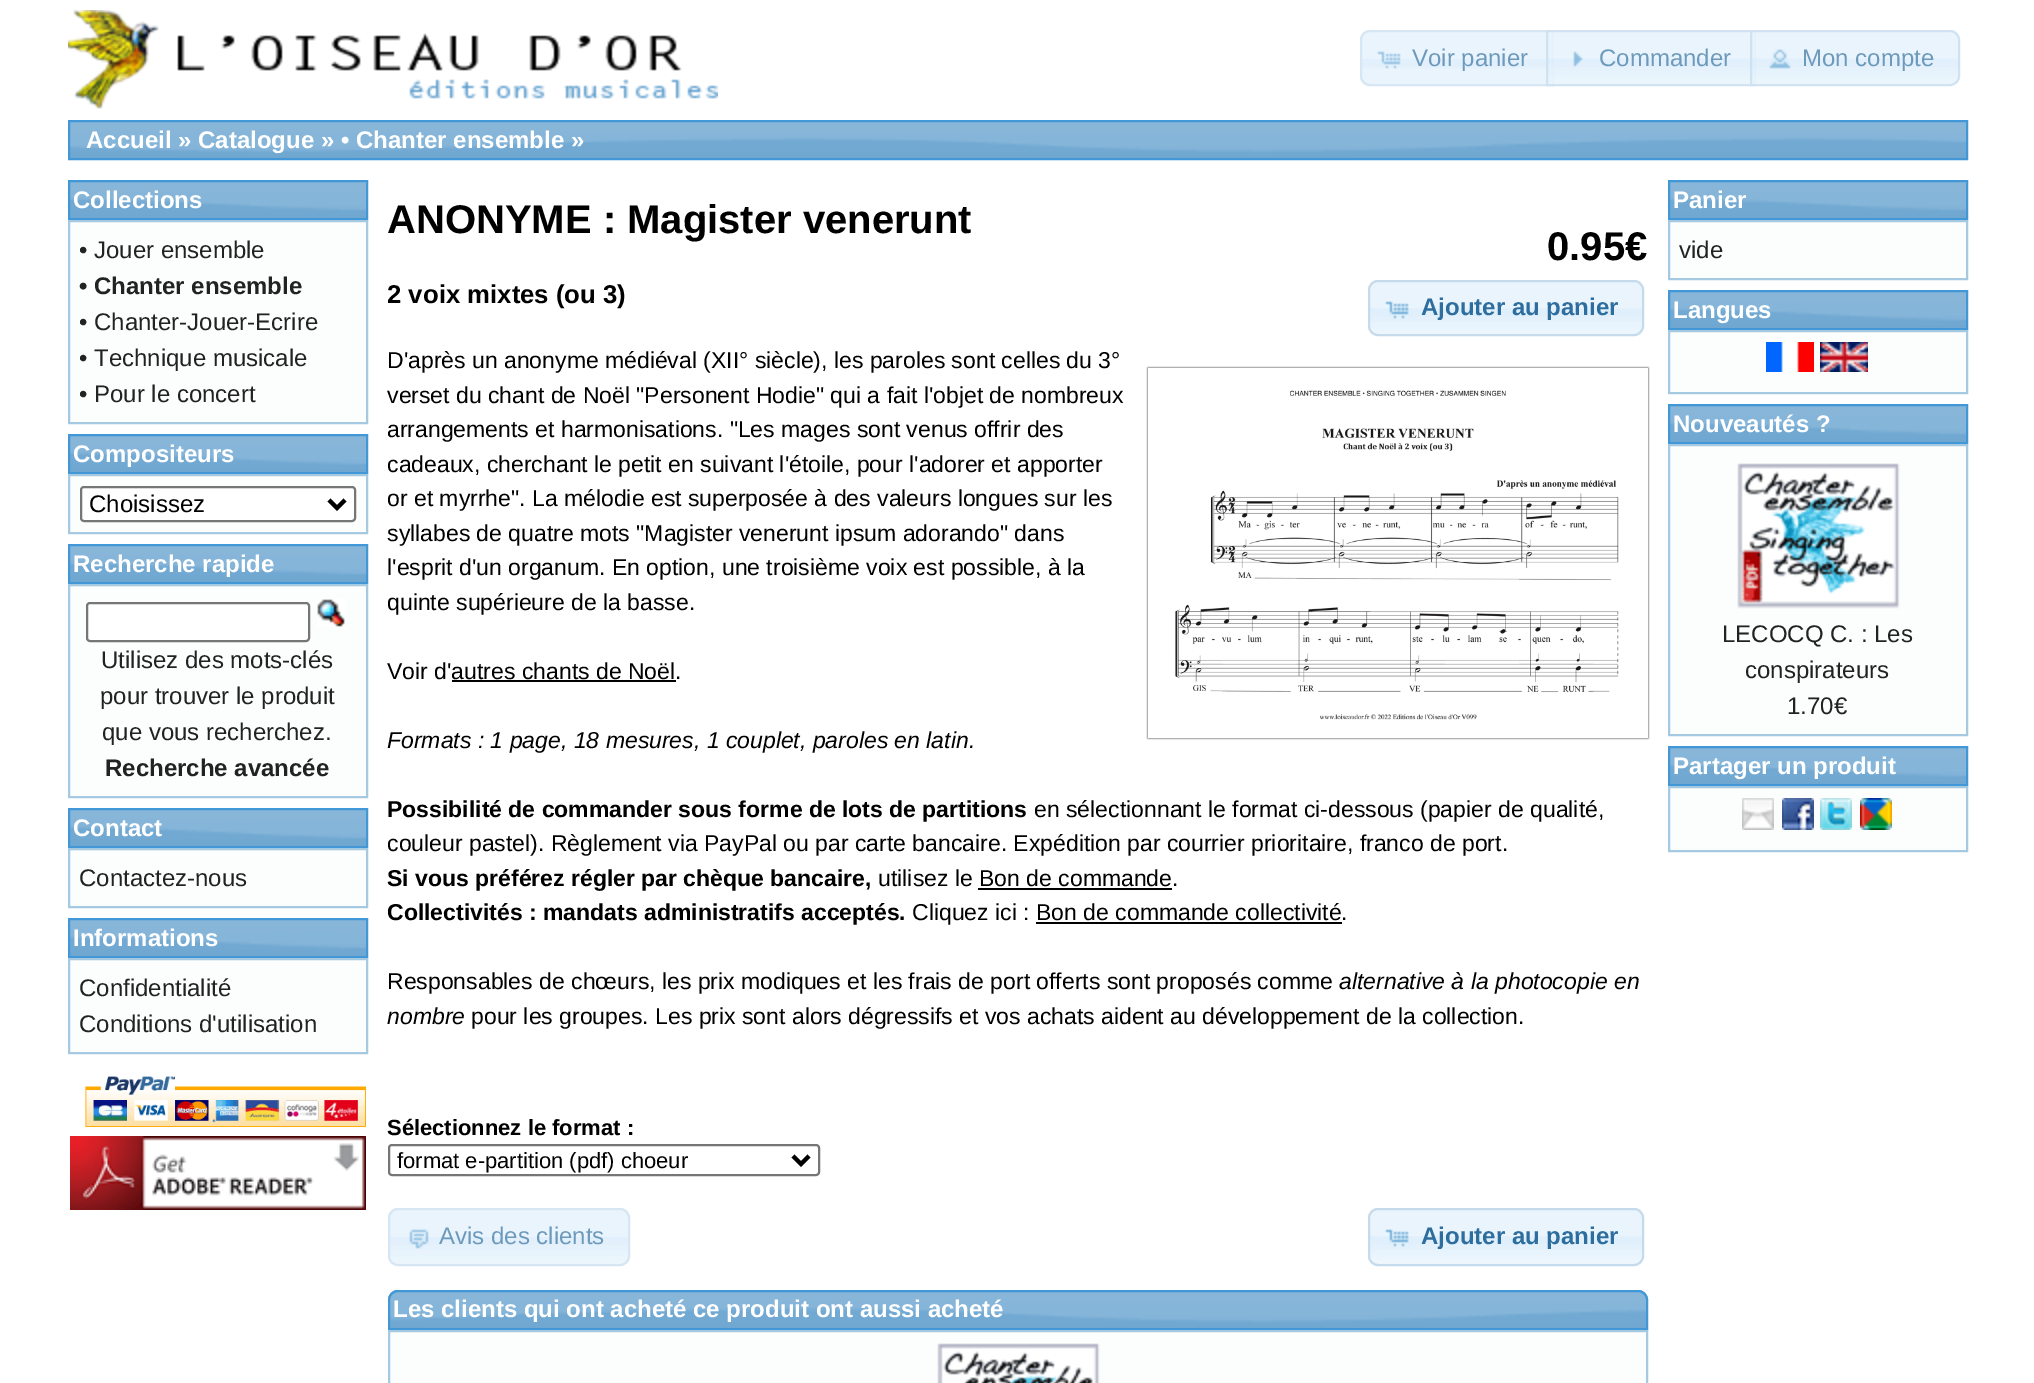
%!PS-Adobe-3.0
%%BoundingBox: 0 0 2034 1383
%%LanguageLevel: 3
%%Pages: 1
%%EndComments
%%BeginProlog
/setalpha { dup .setfillconstantalpha .setstrokeconstantalpha } def
/rrect { 5 dict begin { /r /h /w /y /x } { exch def } forall
  x r add y moveto x w add y 2 copy h add r arct x w add y h add x 1 index r arct
  x y h add x y r arct x y 2 copy exch w add exch r arct closepath end } def
/softshadow { 12 dict begin { /a /b /q /h /w /y /x } { exch def } forall gsave /was 0 def
  9 -2 -9 { dup b mul 4 div /e exch def 1 sub .425 mul 2.718 exch exp 1 add a .99 .min exch div /now exch def
    1 1 now sub 1 was sub div sub setalpha /was now def
    w h .min e 2 mul add 0 gt { x e sub y e sub w e 2 mul add h e 2 mul add
      q e add b .6 mul add w h .min 2 div e add .min 0 .max rrect fill } if } for grestore end } def
/drawimage { 5 dict begin { /h /w /y /x /name } { exch def } forall
  gsave x y translate w h scale
  w h 8 [w 0 0 h 0 0] name (r) file false 3 colorimage grestore end } def
%%EndProlog
%%BeginSetup
<< /PageSize [2034 1383] /PageUsesTransparency true >> setpagedevice
%%EndSetup
%%Page: 1 1
0 .pushpdf14devicefilter
0 1383 translate 1 -1 scale
4 setmiterlimit
1 setgray
0 0 2034 1383 rectfill
(images/1.raw) 68 10 650 99 drawimage
0.914 0.957 0.992 setrgbcolor
newpath 1370 30 moveto 1554 30 lineto 1554 86 lineto 1370 86 lineto 1364.5 86 1360 81.5 1360 76 curveto 1360 40 lineto 1360 34.5 1364.5 30 1370 30 curveto closepath fill
(images/2.raw) 1362 59 190 10 drawimage
0.839 0.902 0.949 setrgbcolor
2 setlinewidth
newpath 1370 31 moveto 1553 31 lineto 1553 85 lineto 1370 85 lineto 1365 85 1361 81 1361 76 curveto 1361 40 lineto 1361 35 1365 31 1370 31 curveto closepath stroke
(images/3.raw) 1377 51 24 18 drawimage
(images/4.raw) 1546 30 210 56 drawimage
0.7 setalpha
0.773 0.859 0.925 setrgbcolor
1547 31 208 54 rectstroke
1 setalpha
(images/5.raw) 1573 51 10 16 drawimage
0.7 setalpha
0.875 0.937 0.988 setrgbcolor
newpath 1750 30 moveto 1950 30 lineto 1955.5 30 1960 34.5 1960 40 curveto 1960 76 lineto 1960 81.5 1955.5 86 1950 86 curveto 1750 86 lineto closepath fill
1 setalpha
(images/6.raw) 1750 30 210 56 drawimage
0.7 setalpha
0.773 0.859 0.925 setrgbcolor
newpath 1751 31 moveto 1950 31 lineto 1955 31 1959 35 1959 40 curveto 1959 76 lineto 1959 81 1955 85 1950 85 curveto 1751 85 lineto closepath stroke
1 setalpha
(images/7.raw) 1769 49 22 20 drawimage
(images/8.raw) 70 122 1896 36 drawimage
0.259 0.592 0.843 setrgbcolor
69 121 1898 38 rectstroke
(images/9.raw) 70 182 296 36 drawimage
69 181 298 38 rectstroke
0.988 0.992 0.992 setrgbcolor
newpath 69 221 moveto 367 221 lineto 367 423 lineto 69 423 lineto closepath gsave fill grestore
0.651 0.788 0.886 setrgbcolor
stroke
(images/9.raw) 70 436 296 36 drawimage
0.259 0.592 0.843 setrgbcolor
69 435 298 38 rectstroke
0.988 0.992 0.992 setrgbcolor
newpath 69 475 moveto 367 475 lineto 367 533 lineto 69 533 lineto closepath gsave fill grestore
0.651 0.788 0.886 setrgbcolor
stroke
1 setgray
81 487 274 34 3 rrect gsave fill grestore
0.463 setgray
stroke
0 setgray
4 setlinewidth
newpath 329 500 moveto 337 508 lineto 345 500 lineto stroke
(images/9.raw) 70 546 296 36 drawimage
0.259 0.592 0.843 setrgbcolor
2 setlinewidth
69 545 298 38 rectstroke
0.988 0.992 0.992 setrgbcolor
newpath 69 585 moveto 367 585 lineto 367 797 lineto 69 797 lineto closepath gsave fill grestore
0.651 0.788 0.886 setrgbcolor
stroke
1 setgray
87 603 222 38 3 rrect gsave fill grestore
0.463 setgray
stroke
(images/10.raw) 317 599 28 28 drawimage
(images/9.raw) 70 810 296 36 drawimage
0.259 0.592 0.843 setrgbcolor
69 809 298 38 rectstroke
0.988 0.992 0.992 setrgbcolor
newpath 69 849 moveto 367 849 lineto 367 907 lineto 69 907 lineto closepath gsave fill grestore
0.651 0.788 0.886 setrgbcolor
stroke
(images/9.raw) 70 920 296 36 drawimage
0.259 0.592 0.843 setrgbcolor
69 919 298 38 rectstroke
0.988 0.992 0.992 setrgbcolor
newpath 69 959 moveto 367 959 lineto 367 1053 lineto 69 1053 lineto closepath gsave fill grestore
0.651 0.788 0.886 setrgbcolor
stroke
(images/11.raw) 85 1076 281 51 drawimage
(images/12.raw) 70 1136 296 74 drawimage
(images/13.raw) 1368 280 276 56 drawimage
0.773 0.859 0.925 setrgbcolor
1369 281 274 54 9 rrect stroke
(images/14.raw) 1385 301 24 18 drawimage
0 setgray
452 680 224 2 rectfill
978 888 194 2 rectfill
1036 922 306 2 rectfill
gsave
newpath 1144 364 moveto 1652 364 lineto 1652 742 lineto 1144 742 lineto closepath 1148 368 moveto 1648 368 lineto 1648 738 lineto 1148 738 lineto closepath eoclip newpath
1148 368 500 370 0 1 1 softshadow
grestore
(images/15.raw) 1175 390 444 330 drawimage
0.463 setgray
389 1145 430 30 3 rrect stroke
0 setgray
4 setlinewidth
newpath 793 1156 moveto 801 1164 lineto 809 1156 lineto stroke
0.914 0.957 0.992 setrgbcolor
388 1208 242 58 10 rrect fill
(images/16.raw) 388 1237 242 29 drawimage
0.839 0.902 0.949 setrgbcolor
2 setlinewidth
389 1209 240 56 9 rrect stroke
(images/17.raw) 409 1229 20 20 drawimage
(images/18.raw) 1368 1208 276 58 drawimage
0.773 0.859 0.925 setrgbcolor
1369 1209 274 56 9 rrect stroke
(images/14.raw) 1385 1229 24 18 drawimage
(images/19.raw) 388 1290 1260 38 drawimage
0.259 0.592 0.843 setrgbcolor
newpath 398 1291 moveto 1638 1291 lineto 1643 1291 1647 1295 1647 1300 curveto 1647 1329 lineto 389 1329 lineto 389 1300 lineto 389 1295 393 1291 398 1291 curveto closepath stroke
0.988 0.992 0.992 setrgbcolor
newpath 389 1331 moveto 1647 1331 lineto 1647 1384 lineto 389 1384 lineto closepath gsave fill grestore
0.651 0.788 0.886 setrgbcolor
stroke
(images/20.raw) 937 1343 163 40 drawimage
(images/9.raw) 1670 182 296 36 drawimage
0.259 0.592 0.843 setrgbcolor
1669 181 298 38 rectstroke
0.988 0.992 0.992 setrgbcolor
newpath 1669 221 moveto 1967 221 lineto 1967 279 lineto 1669 279 lineto closepath gsave fill grestore
0.651 0.788 0.886 setrgbcolor
stroke
(images/9.raw) 1670 292 296 36 drawimage
0.259 0.592 0.843 setrgbcolor
1669 291 298 38 rectstroke
0.988 0.992 0.992 setrgbcolor
newpath 1669 331 moveto 1967 331 lineto 1967 393 lineto 1669 393 lineto closepath gsave fill grestore
0.651 0.788 0.886 setrgbcolor
stroke
(images/21.raw) 1766 342 48 30 drawimage
(images/22.raw) 1820 342 48 30 drawimage
(images/9.raw) 1670 406 296 36 drawimage
0.259 0.592 0.843 setrgbcolor
1669 405 298 38 rectstroke
0.988 0.992 0.992 setrgbcolor
newpath 1669 445 moveto 1967 445 lineto 1967 735 lineto 1669 735 lineto closepath gsave fill grestore
0.651 0.788 0.886 setrgbcolor
stroke
(images/23.raw) 1737 463 163 146 drawimage
(images/9.raw) 1670 748 296 36 drawimage
0.259 0.592 0.843 setrgbcolor
1669 747 298 38 rectstroke
0.988 0.992 0.992 setrgbcolor
newpath 1669 787 moveto 1967 787 lineto 1967 851 lineto 1669 851 lineto closepath gsave fill grestore
0.651 0.788 0.886 setrgbcolor
stroke
(images/24.raw) 1742 798 32 32 drawimage
(images/25.raw) 1782 798 32 32 drawimage
(images/26.raw) 1820 798 32 32 drawimage
(images/27.raw) 1860 798 32 32 drawimage
/LiberationSans-Regular [24 0 0 -24 0 0] selectfont
0.427 0.604 0.733 setrgbcolor
1412 66 moveto (Voir panier) show
1599 66 moveto (Commander) show
1802 66 moveto (Mon compte) show
/LiberationSans-Bold [24 0 0 -24 0 0] selectfont
1 setgray
86 148 moveto (Accueil » Catalogue » • Chanter ensemble ») show
73 208 moveto (Collections) show
/LiberationSans-Regular [24 0 0 -24 0 0] selectfont
0.133 setgray
79 258 moveto (• Jouer ensemble) show
/LiberationSans-Bold [24 0 0 -24 0 0] selectfont
79 294 moveto (• Chanter ensemble) show
/LiberationSans-Regular [24 0 0 -24 0 0] selectfont
79 330 moveto (• Chanter-Jouer-Ecrire) show
79 366 moveto (• Technique musicale) show
79 402 moveto (• Pour le concert) show
/LiberationSans-Bold [24 0 0 -24 0 0] selectfont
1 setgray
73 462 moveto (Compositeurs) show
/LiberationSans-Regular [24 0 0 -24 0 0] selectfont
0 setgray
89 512 moveto (Choisissez) show
/LiberationSans-Bold [24 0 0 -24 0 0] selectfont
1 setgray
73 572 moveto (Recherche rapide) show
/LiberationSans-Regular [24 0 0 -24 0 0] selectfont
0.133 setgray
101 668 moveto (Utilisez des mots-clés) show
100 704 moveto (pour trouver le produit) show
102 740 moveto (que vous recherchez.) show
/LiberationSans-Bold [24 0 0 -24 0 0] selectfont
105 776 moveto (Recherche avancée) show
1 setgray
73 836 moveto (Contact) show
/LiberationSans-Regular [24 0 0 -24 0 0] selectfont
0.133 setgray
79 886 moveto (Contactez-nous) show
/LiberationSans-Bold [24 0 0 -24 0 0] selectfont
1 setgray
73 946 moveto (Informations) show
/LiberationSans-Regular [24 0 0 -24 0 0] selectfont
0.133 setgray
79 996 moveto (Confidentialité) show
79 1032 moveto (Conditions d'utilisation) show
/LiberationSans-Bold [40 0 0 -40 0 0] selectfont
0 setgray
387 233 moveto (ANONYME : Magister venerunt) show
1547 260 moveto (0.95€) show
/LiberationSans-Bold [25.75 0 0 -25.75 0 0] selectfont
387 303 moveto (2 voix mixtes \(ou 3\)) show
/LiberationSans-Bold [24 0 0 -24 0 0] selectfont
0.18 0.431 0.62 setrgbcolor
1421 315 moveto (Ajouter au panier) show
/LiberationSans-Regular [23 0 0 -23 0 0] selectfont
0 setgray
387 368 moveto (D'après un anonyme médiéval \(XII° siècle\), les paroles sont celles du 3°) show
387 403 moveto (verset du chant de Noël "Personent Hodie" qui a fait l'objet de nombreux) show
387 437 moveto (arrangements et harmonisations. "Les mages sont venus offrir des) show
387 472 moveto (cadeaux, cherchant le petit en suivant l'étoile, pour l'adorer et apporter) show
387 506 moveto (or et myrrhe". La mélodie est superposée à des valeurs longues sur les) show
387 541 moveto (syllabes de quatre mots "Magister venerunt ipsum adorando" dans) show
387 575 moveto (l'esprit d'un organum. En option, une troisième voix est possible, à la) show
387 610 moveto (quinte supérieure de la basse.) show
387 679 moveto (Voir d'autres chants de Noël.) show
/LiberationSans-Italic [23 0 0 -23 0 0] selectfont
387 748 moveto (Formats : 1 page, 18 mesures, 1 couplet, paroles en latin.) show
/LiberationSans-Bold [23 0 0 -23 0 0] selectfont
387 817 moveto (Possibilité de commander sous forme de lots de partitions) show
/LiberationSans-Regular [23 0 0 -23 0 0] selectfont
1034 817 moveto (en sélectionnant le format ci-dessous \(papier de qualité,) show
387 851 moveto (couleur pastel\). Règlement via PayPal ou par carte bancaire. Expédition par courrier prioritaire, franco de port.) show
/LiberationSans-Bold [23 0 0 -23 0 0] selectfont
387 886 moveto (Si vous préférez régler par chèque bancaire,) show
/LiberationSans-Regular [23 0 0 -23 0 0] selectfont
878 886 moveto (utilisez le Bon de commande.) show
/LiberationSans-Bold [23 0 0 -23 0 0] selectfont
387 920 moveto (Collectivités : mandats administratifs acceptés.) show
/LiberationSans-Regular [23 0 0 -23 0 0] selectfont
912 920 moveto (Cliquez ici : Bon de commande collectivité.) show
387 989 moveto (Responsables de chœurs, les prix modiques et les frais de port offerts sont proposés comme) show
/LiberationSans-Italic [23 0 0 -23 0 0] selectfont
1339 989 moveto (alternative à la photocopie en) show
387 1024 moveto (nombre) show
/LiberationSans-Regular [23 0 0 -23 0 0] selectfont
471 1024 moveto (pour les groupes. Les prix sont alors dégressifs et vos achats aident au développement de la collection.) show
/LiberationSans-Bold [22 0 0 -22 0 0] selectfont
387 1135 moveto (Sélectionnez le format :) show
/LiberationSans-Regular [22 0 0 -22 0 0] selectfont
397 1168 moveto (format e-partition \(pdf\) choeur) show
/LiberationSans-Regular [24 0 0 -24 0 0] selectfont
0.427 0.604 0.733 setrgbcolor
439 1244 moveto (Avis des clients) show
/LiberationSans-Bold [24 0 0 -24 0 0] selectfont
0.18 0.431 0.62 setrgbcolor
1421 1244 moveto (Ajouter au panier) show
1 setgray
393 1317 moveto (Les clients qui ont acheté ce produit ont aussi acheté) show
1673 208 moveto (Panier) show
/LiberationSans-Regular [24 0 0 -24 0 0] selectfont
0.133 setgray
1679 258 moveto (vide) show
/LiberationSans-Bold [24 0 0 -24 0 0] selectfont
1 setgray
1673 318 moveto (Langues) show
1673 432 moveto (Nouveautés ?) show
/LiberationSans-Regular [24 0 0 -24 0 0] selectfont
0.133 setgray
1722 642 moveto (LECOCQ C. : Les) show
1745 678 moveto (conspirateurs) show
1787 714 moveto (1.70€) show
/LiberationSans-Bold [24 0 0 -24 0 0] selectfont
1 setgray
1673 774 moveto (Partager un produit) show
.poppdf14devicefilter showpage
%%EOF
